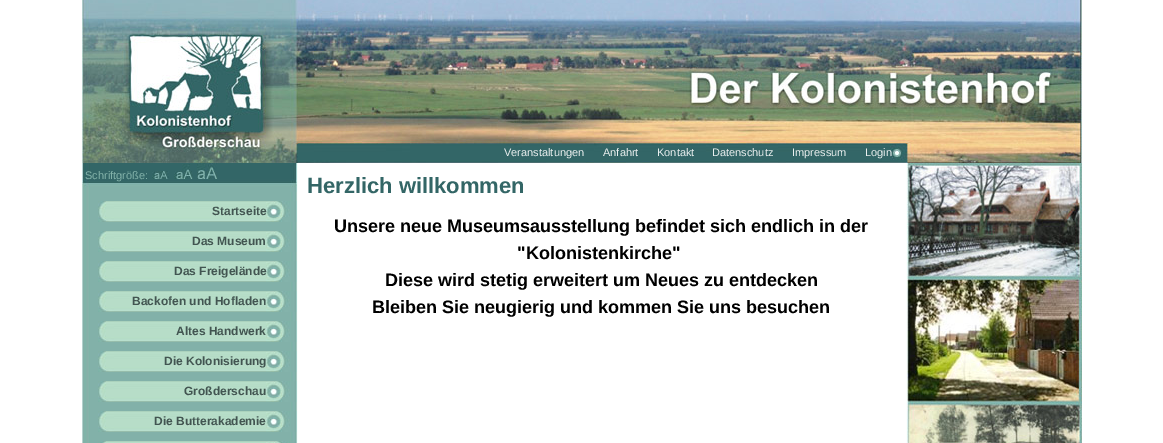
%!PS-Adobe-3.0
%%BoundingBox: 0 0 1163 443
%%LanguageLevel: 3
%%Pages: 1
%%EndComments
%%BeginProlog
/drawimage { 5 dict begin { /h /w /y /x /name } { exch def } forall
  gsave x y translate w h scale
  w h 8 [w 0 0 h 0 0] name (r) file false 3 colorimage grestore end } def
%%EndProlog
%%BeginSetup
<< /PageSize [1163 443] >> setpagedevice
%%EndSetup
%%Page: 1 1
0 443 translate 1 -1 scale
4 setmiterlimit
1 setgray
0 0 1163 443 rectfill
(images/1.raw) 82 163 825 280 drawimage
(images/2.raw) 82 0 1000 144 drawimage
(images/3.raw) 82 144 1000 19 drawimage
(images/4.raw) 82 163 215 29 drawimage
(images/5.raw) 152 171 17 8 drawimage
(images/6.raw) 174 164 19 15 drawimage
(images/7.raw) 197 163 20 16 drawimage
(images/8.raw) 98 201 199 21 drawimage
(images/8.raw) 98 231 199 21 drawimage
(images/8.raw) 98 261 199 21 drawimage
(images/8.raw) 98 291 199 21 drawimage
(images/8.raw) 98 321 199 21 drawimage
(images/8.raw) 98 351 199 21 drawimage
(images/8.raw) 98 381 199 21 drawimage
(images/8.raw) 98 411 199 21 drawimage
(images/9.raw) 98 441 199 2 drawimage
(images/10.raw) 907 163 175 280 drawimage
/LiberationSans-Regular [11 0 0 -11 0 0] selectfont
0.918 0.937 0.937 setrgbcolor
504 156 moveto (Veranstaltungen) show
603 156 moveto (Anfahrt) show
657 156 moveto (Kontakt) show
712 156 moveto (Datenschutz) show
792 156 moveto (Impressum) show
865 156 moveto (Login) show
0.51 0.698 0.663 setrgbcolor
85 179 moveto (Schriftgröße:) show
/LiberationSans-Bold [12 0 0 -12 0 0] selectfont
0.259 0.333 0.318 setrgbcolor
212 215 moveto (Startseite) show
192 245 moveto (Das Museum) show
174 275 moveto (Das Freigelände) show
132 305 moveto (Backofen und Hofladen) show
176 335 moveto (Altes Handwerk) show
164 365 moveto (Die Kolonisierung) show
184 395 moveto (Großderschau) show
154 425 moveto (Die Butterakademie) show
/LiberationSans-Bold [22 0 0 -22 0 0] selectfont
0.2 0.4 0.4 setrgbcolor
307 193 moveto (Herzlich willkommen) show
/LiberationSans-Bold [18 0 0 -18 0 0] selectfont
0 setgray
334 232 moveto (Unsere neue Museumsausstellung befindet sich endlich in der) show
517 259 moveto ("Kolonistenkirche") show
385 286 moveto (Diese wird stetig erweitert um Neues zu entdecken) show
372 313 moveto (Bleiben Sie neugierig und kommen Sie uns besuchen) show
showpage
%%EOF
